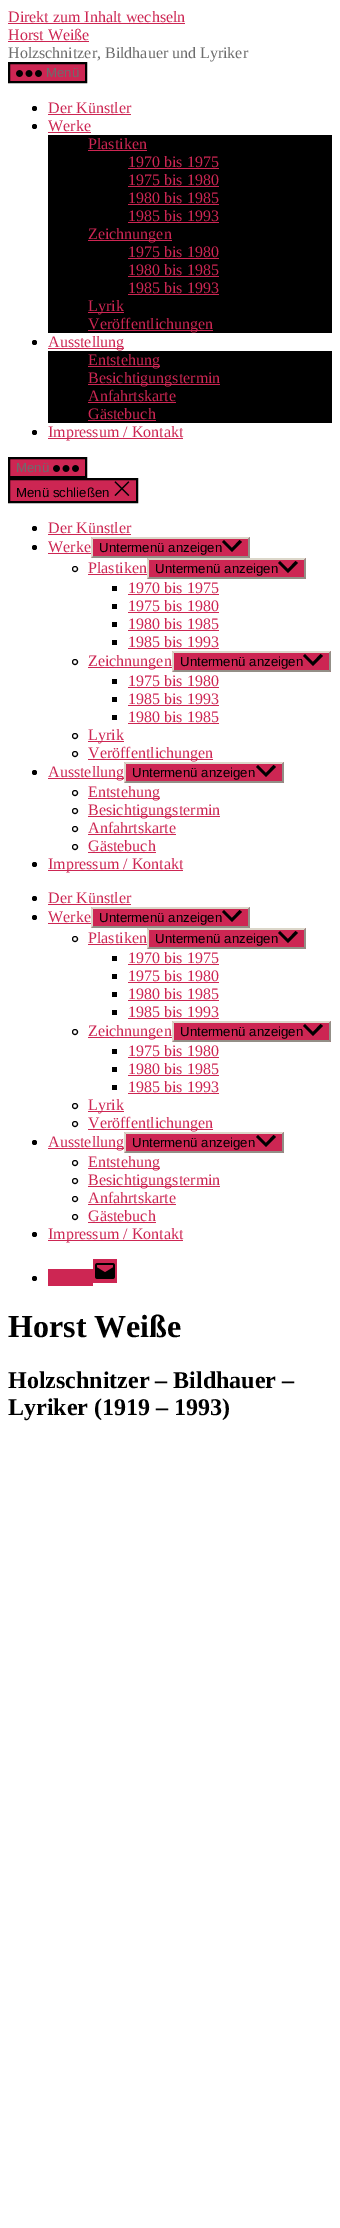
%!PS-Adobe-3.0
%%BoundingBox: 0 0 340 2228
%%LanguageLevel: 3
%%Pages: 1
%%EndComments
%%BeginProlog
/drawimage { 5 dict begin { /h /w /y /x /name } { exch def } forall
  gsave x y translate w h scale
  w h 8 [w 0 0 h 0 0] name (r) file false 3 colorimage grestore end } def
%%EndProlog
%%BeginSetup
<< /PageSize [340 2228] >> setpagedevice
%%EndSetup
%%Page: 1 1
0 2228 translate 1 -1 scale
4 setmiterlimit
1 setgray
0 0 340 2228 rectfill
0.804 0.149 0.325 setrgbcolor
8 23 177 1 rectfill
8 41 81 1 rectfill
newpath 9 63 moveto 86 63 lineto 86 82 lineto 9 82 lineto closepath gsave fill grestore
0 setgray
2 setlinewidth
stroke
(images/1.raw) 16 70 26 7 drawimage
newpath 34.5 108.5 2.5 0 360 arc closepath fill
0.804 0.149 0.325 setrgbcolor
48 114 83 1 rectfill
0 setgray
newpath 34.5 126.5 2.5 0 360 arc closepath fill
0.804 0.149 0.325 setrgbcolor
48 132 43 1 rectfill
0 setgray
48 135 284 198 rectfill
0.804 0.149 0.325 setrgbcolor
88 150 59 1 rectfill
128 168 91 1 rectfill
128 186 91 1 rectfill
128 204 91 1 rectfill
128 222 91 1 rectfill
88 240 84 1 rectfill
128 258 91 1 rectfill
128 276 91 1 rectfill
128 294 91 1 rectfill
88 312 36 1 rectfill
88 330 125 1 rectfill
0 setgray
newpath 34.5 342.5 2.5 0 360 arc closepath fill
0.804 0.149 0.325 setrgbcolor
48 348 76 1 rectfill
0 setgray
48 351 284 72 rectfill
0.804 0.149 0.325 setrgbcolor
88 366 72 1 rectfill
88 384 132 1 rectfill
88 402 88 1 rectfill
88 420 68 1 rectfill
0 setgray
newpath 34.5 432.5 2.5 0 360 arc closepath fill
0.804 0.149 0.325 setrgbcolor
48 438 135 1 rectfill
newpath 9 458 moveto 86 458 lineto 86 477 lineto 9 477 lineto closepath gsave fill grestore
0 setgray
stroke
(images/1.raw) 53 465 26 7 drawimage
0.804 0.149 0.325 setrgbcolor
newpath 9 479 moveto 137 479 lineto 137 502 lineto 9 502 lineto closepath gsave fill grestore
0 setgray
stroke
(images/2.raw) 114 481 16 15 drawimage
newpath 34.5 528.5 2.5 0 360 arc closepath fill
0.804 0.149 0.325 setrgbcolor
48 534 83 1 rectfill
0 setgray
newpath 34.5 547.5 2.5 0 360 arc closepath fill
0.804 0.149 0.325 setrgbcolor
48 553 43 1 rectfill
91 537 159 21 rectfill
0.863 0.843 0.792 setrgbcolor
newpath 91 537 moveto 250 537 lineto 248 539 lineto 93 539 lineto closepath fill
0.576 0.561 0.529 setrgbcolor
newpath 250 537 moveto 250 558 lineto 248 556 lineto 248 539 lineto closepath fill
newpath 250 558 moveto 91 558 lineto 93 556 lineto 248 556 lineto closepath fill
0.863 0.843 0.792 setrgbcolor
newpath 91 558 moveto 91 537 lineto 93 539 lineto 93 556 lineto closepath fill
0 setgray
newpath 232 548 moveto 239.5 540 lineto 242 542 lineto 232 552 lineto 222 542 lineto 224 540 lineto closepath eofill
1 setlinewidth
newpath 75 569 2.5 0 360 arc closepath stroke
0.804 0.149 0.325 setrgbcolor
88 574 59 1 rectfill
147 558 159 21 rectfill
0.863 0.843 0.792 setrgbcolor
newpath 147 558 moveto 306 558 lineto 304 560 lineto 149 560 lineto closepath fill
0.576 0.561 0.529 setrgbcolor
newpath 306 558 moveto 306 579 lineto 304 577 lineto 304 560 lineto closepath fill
newpath 306 579 moveto 147 579 lineto 149 577 lineto 304 577 lineto closepath fill
0.863 0.843 0.792 setrgbcolor
newpath 147 579 moveto 147 558 lineto 149 560 lineto 149 577 lineto closepath fill
0 setgray
newpath 288 569 moveto 295.5 561 lineto 298 563 lineto 288 573 lineto 278 563 lineto 280 561 lineto closepath eofill
112 586 5 5 rectfill
0.804 0.149 0.325 setrgbcolor
128 594 91 1 rectfill
0 setgray
112 604 5 5 rectfill
0.804 0.149 0.325 setrgbcolor
128 612 91 1 rectfill
0 setgray
112 622 5 5 rectfill
0.804 0.149 0.325 setrgbcolor
128 630 91 1 rectfill
0 setgray
112 640 5 5 rectfill
0.804 0.149 0.325 setrgbcolor
128 648 91 1 rectfill
0 setgray
newpath 75 662 2.5 0 360 arc closepath stroke
0.804 0.149 0.325 setrgbcolor
88 667 84 1 rectfill
172 651 159 21 rectfill
0.863 0.843 0.792 setrgbcolor
newpath 172 651 moveto 331 651 lineto 329 653 lineto 174 653 lineto closepath fill
0.576 0.561 0.529 setrgbcolor
newpath 331 651 moveto 331 672 lineto 329 670 lineto 329 653 lineto closepath fill
newpath 331 672 moveto 172 672 lineto 174 670 lineto 329 670 lineto closepath fill
0.863 0.843 0.792 setrgbcolor
newpath 172 672 moveto 172 651 lineto 174 653 lineto 174 670 lineto closepath fill
0 setgray
newpath 313 662 moveto 320.5 654 lineto 323 656 lineto 313 666 lineto 303 656 lineto 305 654 lineto closepath eofill
112 679 5 5 rectfill
0.804 0.149 0.325 setrgbcolor
128 687 91 1 rectfill
0 setgray
112 697 5 5 rectfill
0.804 0.149 0.325 setrgbcolor
128 705 91 1 rectfill
0 setgray
112 715 5 5 rectfill
0.804 0.149 0.325 setrgbcolor
128 723 91 1 rectfill
0 setgray
newpath 75 736 2.5 0 360 arc closepath stroke
0.804 0.149 0.325 setrgbcolor
88 741 36 1 rectfill
0 setgray
newpath 75 754 2.5 0 360 arc closepath stroke
0.804 0.149 0.325 setrgbcolor
88 759 125 1 rectfill
0 setgray
newpath 34.5 772.5 2.5 0 360 arc closepath fill
0.804 0.149 0.325 setrgbcolor
48 778 76 1 rectfill
124 762 160 21 rectfill
0.863 0.843 0.792 setrgbcolor
newpath 124 762 moveto 284 762 lineto 282 764 lineto 126 764 lineto closepath fill
0.576 0.561 0.529 setrgbcolor
newpath 284 762 moveto 284 783 lineto 282 781 lineto 282 764 lineto closepath fill
newpath 284 783 moveto 124 783 lineto 126 781 lineto 282 781 lineto closepath fill
0 setgray
newpath 266 773 moveto 273.5 765 lineto 276 767 lineto 266 777 lineto 256 767 lineto 258 765 lineto closepath eofill
newpath 75 793 2.5 0 360 arc closepath stroke
0.804 0.149 0.325 setrgbcolor
88 798 72 1 rectfill
0 setgray
newpath 75 811 2.5 0 360 arc closepath stroke
0.804 0.149 0.325 setrgbcolor
88 816 132 1 rectfill
0 setgray
newpath 75 829 2.5 0 360 arc closepath stroke
0.804 0.149 0.325 setrgbcolor
88 834 88 1 rectfill
0 setgray
newpath 75 847 2.5 0 360 arc closepath stroke
0.804 0.149 0.325 setrgbcolor
88 852 68 1 rectfill
0 setgray
newpath 34.5 864.5 2.5 0 360 arc closepath fill
0.804 0.149 0.325 setrgbcolor
48 870 135 1 rectfill
0 setgray
newpath 34.5 898.5 2.5 0 360 arc closepath fill
0.804 0.149 0.325 setrgbcolor
48 904 83 1 rectfill
0 setgray
newpath 34.5 917.5 2.5 0 360 arc closepath fill
0.804 0.149 0.325 setrgbcolor
48 923 43 1 rectfill
91 907 159 21 rectfill
0.863 0.843 0.792 setrgbcolor
newpath 91 907 moveto 250 907 lineto 248 909 lineto 93 909 lineto closepath fill
0.576 0.561 0.529 setrgbcolor
newpath 250 907 moveto 250 928 lineto 248 926 lineto 248 909 lineto closepath fill
newpath 250 928 moveto 91 928 lineto 93 926 lineto 248 926 lineto closepath fill
0.863 0.843 0.792 setrgbcolor
newpath 91 928 moveto 91 907 lineto 93 909 lineto 93 926 lineto closepath fill
0 setgray
newpath 232 918 moveto 239.5 910 lineto 242 912 lineto 232 922 lineto 222 912 lineto 224 910 lineto closepath eofill
newpath 75 939 2.5 0 360 arc closepath stroke
0.804 0.149 0.325 setrgbcolor
88 944 59 1 rectfill
147 928 159 21 rectfill
0.863 0.843 0.792 setrgbcolor
newpath 147 928 moveto 306 928 lineto 304 930 lineto 149 930 lineto closepath fill
0.576 0.561 0.529 setrgbcolor
newpath 306 928 moveto 306 949 lineto 304 947 lineto 304 930 lineto closepath fill
newpath 306 949 moveto 147 949 lineto 149 947 lineto 304 947 lineto closepath fill
0.863 0.843 0.792 setrgbcolor
newpath 147 949 moveto 147 928 lineto 149 930 lineto 149 947 lineto closepath fill
0 setgray
newpath 288 939 moveto 295.5 931 lineto 298 933 lineto 288 943 lineto 278 933 lineto 280 931 lineto closepath eofill
112 956 5 5 rectfill
0.804 0.149 0.325 setrgbcolor
128 964 91 1 rectfill
0 setgray
112 974 5 5 rectfill
0.804 0.149 0.325 setrgbcolor
128 982 91 1 rectfill
0 setgray
112 992 5 5 rectfill
0.804 0.149 0.325 setrgbcolor
128 1000 91 1 rectfill
0 setgray
112 1010 5 5 rectfill
0.804 0.149 0.325 setrgbcolor
128 1018 91 1 rectfill
0 setgray
newpath 75 1032 2.5 0 360 arc closepath stroke
0.804 0.149 0.325 setrgbcolor
88 1037 84 1 rectfill
172 1021 159 21 rectfill
0.863 0.843 0.792 setrgbcolor
newpath 172 1021 moveto 331 1021 lineto 329 1023 lineto 174 1023 lineto closepath fill
0.576 0.561 0.529 setrgbcolor
newpath 331 1021 moveto 331 1042 lineto 329 1040 lineto 329 1023 lineto closepath fill
newpath 331 1042 moveto 172 1042 lineto 174 1040 lineto 329 1040 lineto closepath fill
0.863 0.843 0.792 setrgbcolor
newpath 172 1042 moveto 172 1021 lineto 174 1023 lineto 174 1040 lineto closepath fill
0 setgray
newpath 313 1032 moveto 320.5 1024 lineto 323 1026 lineto 313 1036 lineto 303 1026 lineto 305 1024 lineto closepath eofill
112 1049 5 5 rectfill
0.804 0.149 0.325 setrgbcolor
128 1057 91 1 rectfill
0 setgray
112 1067 5 5 rectfill
0.804 0.149 0.325 setrgbcolor
128 1075 91 1 rectfill
0 setgray
112 1085 5 5 rectfill
0.804 0.149 0.325 setrgbcolor
128 1093 91 1 rectfill
0 setgray
newpath 75 1106 2.5 0 360 arc closepath stroke
0.804 0.149 0.325 setrgbcolor
88 1111 36 1 rectfill
0 setgray
newpath 75 1124 2.5 0 360 arc closepath stroke
0.804 0.149 0.325 setrgbcolor
88 1129 125 1 rectfill
0 setgray
newpath 34.5 1142.5 2.5 0 360 arc closepath fill
0.804 0.149 0.325 setrgbcolor
48 1148 76 1 rectfill
124 1132 160 21 rectfill
0.863 0.843 0.792 setrgbcolor
newpath 124 1132 moveto 284 1132 lineto 282 1134 lineto 126 1134 lineto closepath fill
0.576 0.561 0.529 setrgbcolor
newpath 284 1132 moveto 284 1153 lineto 282 1151 lineto 282 1134 lineto closepath fill
newpath 284 1153 moveto 124 1153 lineto 126 1151 lineto 282 1151 lineto closepath fill
0 setgray
newpath 266 1143 moveto 273.5 1135 lineto 276 1137 lineto 266 1147 lineto 256 1137 lineto 258 1135 lineto closepath eofill
newpath 75 1163 2.5 0 360 arc closepath stroke
0.804 0.149 0.325 setrgbcolor
88 1168 72 1 rectfill
0 setgray
newpath 75 1181 2.5 0 360 arc closepath stroke
0.804 0.149 0.325 setrgbcolor
88 1186 132 1 rectfill
0 setgray
newpath 75 1199 2.5 0 360 arc closepath stroke
0.804 0.149 0.325 setrgbcolor
88 1204 88 1 rectfill
0 setgray
newpath 75 1217 2.5 0 360 arc closepath stroke
0.804 0.149 0.325 setrgbcolor
88 1222 68 1 rectfill
0 setgray
newpath 34.5 1234.5 2.5 0 360 arc closepath fill
0.804 0.149 0.325 setrgbcolor
48 1240 135 1 rectfill
93 1259 24 24 rectfill
0 setgray
newpath 34.5 1278.5 2.5 0 360 arc closepath fill
0.804 0.149 0.325 setrgbcolor
48 1269 45 17 rectfill
(images/3.raw) 95 1263 20 16 drawimage
/LiberationSerif-Regular [16 0 0 -16 0 0] selectfont
8 22 moveto (Direkt zum Inhalt wechseln) show
8 40 moveto (Horst Weiße) show
0.427 setgray
8 58 moveto (Holzschnitzer, Bildhauer und Lyriker) show
/LiberationSans-Regular [13.25 0 0 -13.25 0 0] selectfont
46 77 moveto (Menü) show
/LiberationSerif-Regular [16 0 0 -16 0 0] selectfont
0.804 0.149 0.325 setrgbcolor
48 113 moveto (Der Künstler) show
48 131 moveto (Werke) show
88 149 moveto (Plastiken) show
128 167 moveto (1970 bis 1975) show
128 185 moveto (1975 bis 1980) show
128 203 moveto (1980 bis 1985) show
128 221 moveto (1985 bis 1993) show
88 239 moveto (Zeichnungen) show
128 257 moveto (1975 bis 1980) show
128 275 moveto (1980 bis 1985) show
128 293 moveto (1985 bis 1993) show
88 311 moveto (Lyrik) show
88 329 moveto (Veröffentlichungen) show
48 347 moveto (Ausstellung) show
88 365 moveto (Entstehung) show
88 383 moveto (Besichtigungstermin) show
88 401 moveto (Anfahrtskarte) show
88 419 moveto (Gästebuch) show
48 437 moveto (Impressum / Kontakt) show
/LiberationSans-Regular [13.25 0 0 -13.25 0 0] selectfont
0.427 setgray
16 472 moveto (Menü) show
0 setgray
16 497 moveto (Menü schließen) show
/LiberationSerif-Regular [16 0 0 -16 0 0] selectfont
0.804 0.149 0.325 setrgbcolor
48 533 moveto (Der Künstler) show
48 552 moveto (Werke) show
/LiberationSans-Regular [13.25 0 0 -13.25 0 0] selectfont
0 setgray
99 552 moveto (Untermenü anzeigen) show
/LiberationSerif-Regular [16 0 0 -16 0 0] selectfont
0.804 0.149 0.325 setrgbcolor
88 573 moveto (Plastiken) show
/LiberationSans-Regular [13.25 0 0 -13.25 0 0] selectfont
0 setgray
155 573 moveto (Untermenü anzeigen) show
/LiberationSerif-Regular [16 0 0 -16 0 0] selectfont
0.804 0.149 0.325 setrgbcolor
128 593 moveto (1970 bis 1975) show
128 611 moveto (1975 bis 1980) show
128 629 moveto (1980 bis 1985) show
128 647 moveto (1985 bis 1993) show
88 666 moveto (Zeichnungen) show
/LiberationSans-Regular [13.25 0 0 -13.25 0 0] selectfont
0 setgray
180 666 moveto (Untermenü anzeigen) show
/LiberationSerif-Regular [16 0 0 -16 0 0] selectfont
0.804 0.149 0.325 setrgbcolor
128 686 moveto (1975 bis 1980) show
128 704 moveto (1985 bis 1993) show
128 722 moveto (1980 bis 1985) show
88 740 moveto (Lyrik) show
88 758 moveto (Veröffentlichungen) show
48 777 moveto (Ausstellung) show
0.863 0.843 0.792 setrgbcolor
newpath 124 783 moveto 124 762 lineto 126 764 lineto 126 781 lineto closepath fill
/LiberationSans-Regular [13.25 0 0 -13.25 0 0] selectfont
0 setgray
132 777 moveto (Untermenü anzeigen) show
/LiberationSerif-Regular [16 0 0 -16 0 0] selectfont
0.804 0.149 0.325 setrgbcolor
88 797 moveto (Entstehung) show
88 815 moveto (Besichtigungstermin) show
88 833 moveto (Anfahrtskarte) show
88 851 moveto (Gästebuch) show
48 869 moveto (Impressum / Kontakt) show
48 903 moveto (Der Künstler) show
48 922 moveto (Werke) show
/LiberationSans-Regular [13.25 0 0 -13.25 0 0] selectfont
0 setgray
99 922 moveto (Untermenü anzeigen) show
/LiberationSerif-Regular [16 0 0 -16 0 0] selectfont
0.804 0.149 0.325 setrgbcolor
88 943 moveto (Plastiken) show
/LiberationSans-Regular [13.25 0 0 -13.25 0 0] selectfont
0 setgray
155 943 moveto (Untermenü anzeigen) show
/LiberationSerif-Regular [16 0 0 -16 0 0] selectfont
0.804 0.149 0.325 setrgbcolor
128 963 moveto (1970 bis 1975) show
128 981 moveto (1975 bis 1980) show
128 999 moveto (1980 bis 1985) show
128 1017 moveto (1985 bis 1993) show
88 1036 moveto (Zeichnungen) show
/LiberationSans-Regular [13.25 0 0 -13.25 0 0] selectfont
0 setgray
180 1036 moveto (Untermenü anzeigen) show
/LiberationSerif-Regular [16 0 0 -16 0 0] selectfont
0.804 0.149 0.325 setrgbcolor
128 1056 moveto (1975 bis 1980) show
128 1074 moveto (1980 bis 1985) show
128 1092 moveto (1985 bis 1993) show
88 1110 moveto (Lyrik) show
88 1128 moveto (Veröffentlichungen) show
48 1147 moveto (Ausstellung) show
0.863 0.843 0.792 setrgbcolor
newpath 124 1153 moveto 124 1132 lineto 126 1134 lineto 126 1151 lineto closepath fill
/LiberationSans-Regular [13.25 0 0 -13.25 0 0] selectfont
0 setgray
132 1147 moveto (Untermenü anzeigen) show
/LiberationSerif-Regular [16 0 0 -16 0 0] selectfont
0.804 0.149 0.325 setrgbcolor
88 1167 moveto (Entstehung) show
88 1185 moveto (Besichtigungstermin) show
88 1203 moveto (Anfahrtskarte) show
88 1221 moveto (Gästebuch) show
48 1239 moveto (Impressum / Kontakt) show
/LiberationSerif-Bold [32 0 0 -32 0 0] selectfont
0 setgray
8 1337 moveto (Horst Weiße) show
/LiberationSerif-Bold [24 0 0 -24 0 0] selectfont
8 1388 moveto (Holzschnitzer – Bildhauer –) show
8 1415 moveto (Lyriker \(1919 – 1993\)) show
showpage
%%EOF
